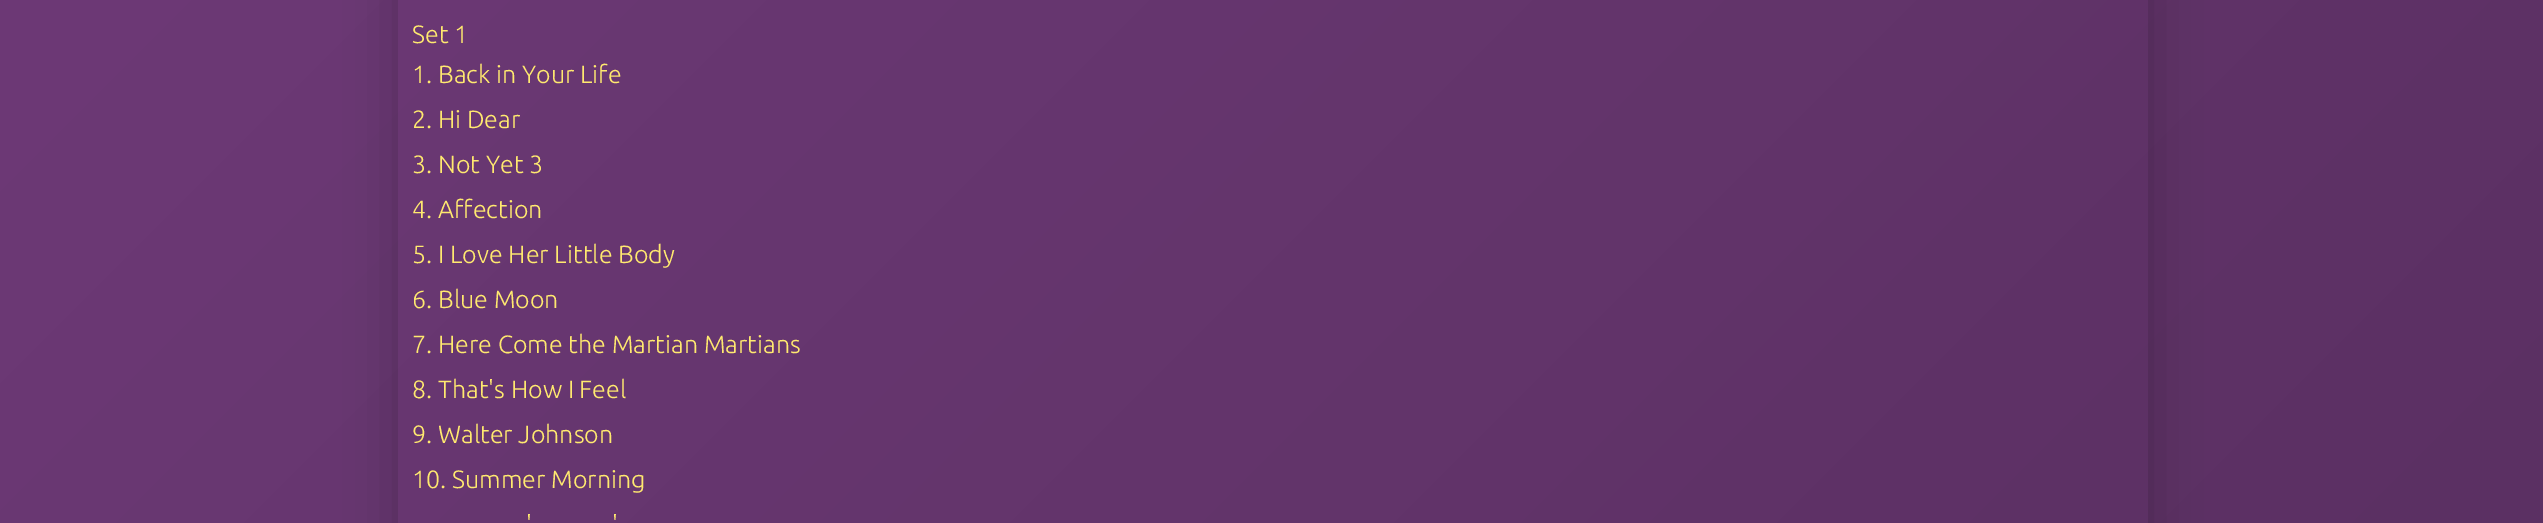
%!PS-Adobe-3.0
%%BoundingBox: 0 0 2543 523
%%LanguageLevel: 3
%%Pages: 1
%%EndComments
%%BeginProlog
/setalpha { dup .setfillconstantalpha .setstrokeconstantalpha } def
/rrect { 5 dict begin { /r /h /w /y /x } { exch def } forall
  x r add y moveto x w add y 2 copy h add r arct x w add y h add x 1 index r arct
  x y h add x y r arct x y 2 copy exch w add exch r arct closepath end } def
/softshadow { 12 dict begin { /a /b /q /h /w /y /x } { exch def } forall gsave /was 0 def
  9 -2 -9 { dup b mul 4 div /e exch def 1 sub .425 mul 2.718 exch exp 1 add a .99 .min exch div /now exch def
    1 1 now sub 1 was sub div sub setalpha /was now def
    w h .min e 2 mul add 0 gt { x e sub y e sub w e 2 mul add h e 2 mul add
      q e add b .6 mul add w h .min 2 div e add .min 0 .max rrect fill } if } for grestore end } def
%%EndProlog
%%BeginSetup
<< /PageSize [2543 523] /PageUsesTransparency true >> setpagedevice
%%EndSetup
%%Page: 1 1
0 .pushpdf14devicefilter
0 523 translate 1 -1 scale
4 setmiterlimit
1 setgray
0 0 2543 523 rectfill
gsave newpath 0 0 moveto 2543 0 lineto 2543 523 lineto 0 523 lineto closepath clip newpath
<< /ShadingType 2 /ColorSpace /DeviceRGB /Coords [215 -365 2329 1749] /Extend [true true] /Function << /FunctionType 2 /Domain [0 1] /C0 [0.431 0.227 0.467] /C1 [0.333 0.176 0.361] /N 1 >> >> shfill grestore
gsave
newpath 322 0 moveto 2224 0 lineto 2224 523 lineto 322 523 lineto closepath 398 -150 moveto 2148 -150 lineto 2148 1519 lineto 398 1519 lineto closepath eoclip newpath
0 setgray
398 -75 1750 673 0 25 0.2 softshadow
grestore
/Ubuntu-Light [25 0 0 -25 0 0] selectfont
1 0.914 0.435 setrgbcolor
412 43 moveto (Set 1) show
412 83 moveto (1. Back in Your Life) show
412 128 moveto (2. Hi Dear) show
412 173 moveto (3. Not Yet 3) show
412 218 moveto (4. Affection) show
412 263 moveto (5. I Love Her Little Body) show
412 308 moveto (6. Blue Moon) show
412 353 moveto (7. Here Come the Martian Martians) show
412 398 moveto (8. That's How I Feel) show
412 443 moveto (9. Walter Johnson) show
412 488 moveto (10. Summer Morning) show
526 533 moveto (') show
612 533 moveto (') show
.poppdf14devicefilter showpage
%%EOF
